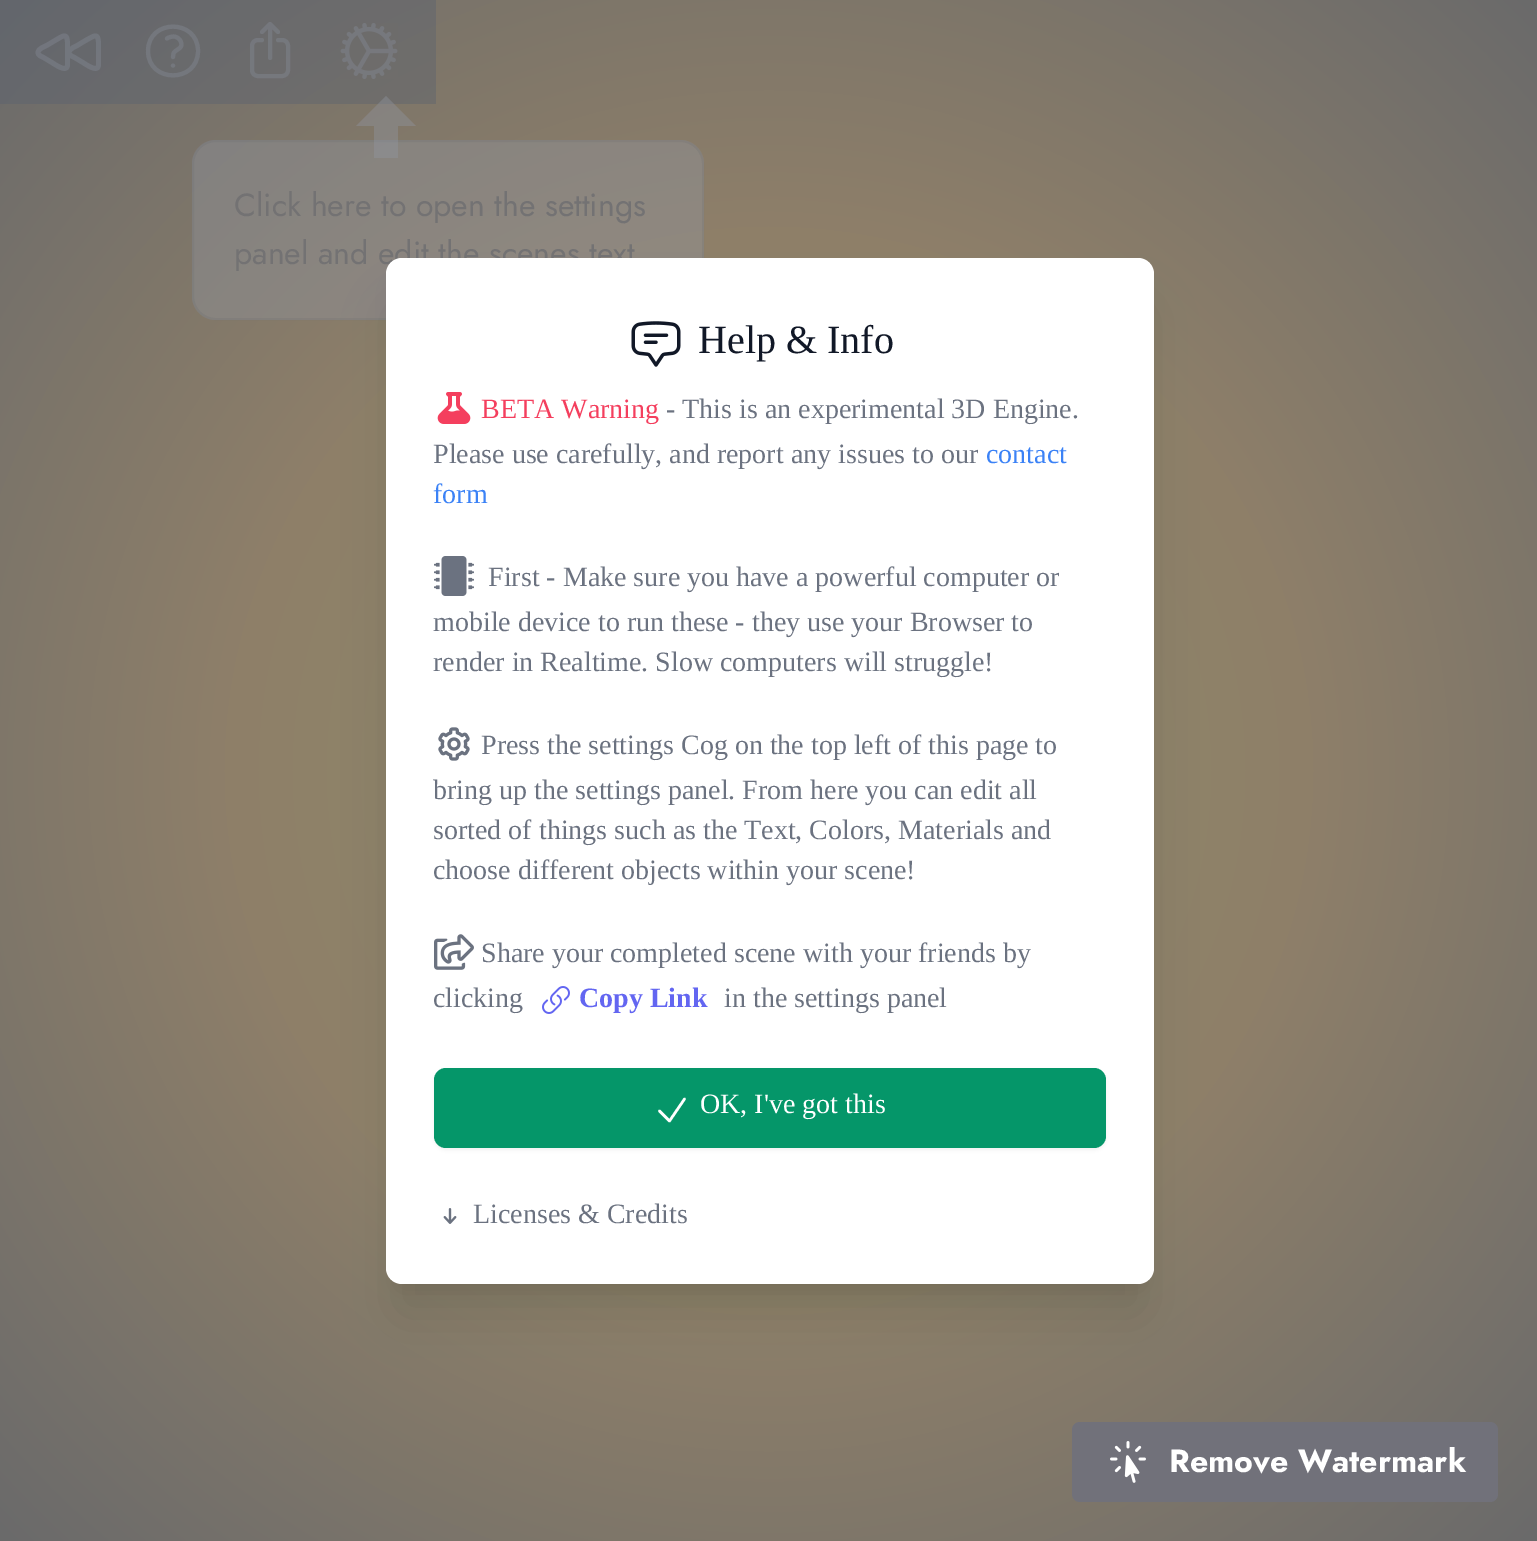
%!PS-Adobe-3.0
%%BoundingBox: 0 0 1537 1541
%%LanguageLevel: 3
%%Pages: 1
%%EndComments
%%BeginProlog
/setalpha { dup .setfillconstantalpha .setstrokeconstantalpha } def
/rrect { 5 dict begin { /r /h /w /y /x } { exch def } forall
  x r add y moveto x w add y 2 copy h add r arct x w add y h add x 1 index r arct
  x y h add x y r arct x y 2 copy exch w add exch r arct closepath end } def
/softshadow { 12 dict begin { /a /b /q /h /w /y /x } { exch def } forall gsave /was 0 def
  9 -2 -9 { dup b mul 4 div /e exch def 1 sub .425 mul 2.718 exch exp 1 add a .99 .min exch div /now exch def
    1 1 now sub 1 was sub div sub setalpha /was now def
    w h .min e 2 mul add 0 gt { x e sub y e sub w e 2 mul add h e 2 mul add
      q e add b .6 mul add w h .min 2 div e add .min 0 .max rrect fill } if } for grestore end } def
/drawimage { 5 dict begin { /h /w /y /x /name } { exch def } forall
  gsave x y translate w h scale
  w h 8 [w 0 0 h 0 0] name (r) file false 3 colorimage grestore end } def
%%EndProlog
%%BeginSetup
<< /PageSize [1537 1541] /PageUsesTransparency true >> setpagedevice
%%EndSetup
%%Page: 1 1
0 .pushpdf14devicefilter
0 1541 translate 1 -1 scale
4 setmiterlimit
1 setgray
0 0 1537 1541 rectfill
gsave newpath 0 0 moveto 1537 0 lineto 1537 1541 lineto 0 1541 lineto closepath clip newpath 769 771 translate 1089 1089 scale
<< /ShadingType 3 /ColorSpace /DeviceRGB /Coords [0 0 0 0 0 1] /Extend [true true] /Function << /FunctionType 3 /Domain [0 1] /Functions [<< /FunctionType 2 /Domain [0 1] /C0 [0.557 0.561 0.404] /C1 [0.557 0.498 0.412] /N 1 >> << /FunctionType 2 /Domain [0 1] /C0 [0.557 0.498 0.412] /C1 [0.416 0.416 0.42] /N 1 >>] /Bounds [0.5] /Encode [0 1 0 1] >> >> shfill grestore
0.4 setalpha
0.345 0.376 0.431 setrgbcolor
0 0 436 104 rectfill
0.522 0.545 0.592 setrgbcolor
4.8 setlinewidth
1 setlinecap
1 setlinejoin
newpath 98.5 65 moveto 98.5 74 84 63 82 62 curveto 74.5 57.5 lineto 72.5 56.5 69 55.5 69 52.5 curveto 69 48.5 76 46.5 78 45 curveto 85.5 40.5 lineto 94 36 98.5 31.5 98.5 44 curveto closepath 67.5 65 moveto 67.5 74 53 63 51 62 curveto 43.5 57.5 lineto 41.5 56.5 38 55.5 38 52.5 curveto 38 48.5 45 46.5 47.5 45 curveto 55 40.5 lineto 63 36 67.5 31.5 67.5 44 curveto closepath stroke
4.1 setlinewidth
newpath 167 38.5 moveto 169 37 172 36.5 174.5 36.5 curveto 177 37 179.5 38.5 180.5 41 curveto 184.5 49 175 49 173.5 53.5 curveto 173 57 lineto 198 51 moveto 198 83.5 148 83.5 148 51 curveto 148 18.5 198 18.5 198 51 curveto closepath 173 65.5 moveto 173 65.5 lineto closepath stroke
4 setlinewidth
newpath 262 40 moveto 258 40 lineto 254.5 40 252 42.5 252 46 curveto 252 70 lineto 252 73.5 254.5 76 258 76 curveto 282 76 lineto 285.5 76 288 73.5 288 70 curveto 288 46 lineto 288 42.5 285.5 40 282 40 curveto 278 40 lineto 278 32 moveto 270 24 lineto 270 24 moveto 262 32 lineto 270 24 moveto 270 58 lineto stroke
1 setalpha
(images/1.raw) 340 23 58 56 drawimage
0.4 setalpha
0.565 0.584 0.627 setrgbcolor
192 140 512 180 24 rrect fill
0.12 setalpha
0.314 0.337 0.376 setrgbcolor
2 setlinewidth
0 setlinecap
0 setlinejoin
193 141 510 178 23 rrect stroke
0.4 setalpha
0.565 0.584 0.627 setrgbcolor
newpath 386 96 moveto 356 126 lineto 374 126 lineto 374 158 lineto 398 158 lineto 398 126 lineto 416 126 lineto closepath fill
1 setalpha
0.443 0.443 0.478 setrgbcolor
1072 1422 426 80 8 rrect fill
(images/2.raw) 1110 1441 36 42 drawimage
0 setgray
398 286 744 1002 4 10 0.1 softshadow
396 308 748 1006 6 25 0.1 softshadow
/Jost-Regular [32 0 0 -32 0 0] selectfont
0.451 0.447 0.451 setrgbcolor
234 216 moveto (Click here to open the settings) show
234 264 moveto (panel and edit the scenes text) show
/Jost-Bold [32 0 0 -32 0 0] selectfont
1 setgray
1169 1472 moveto (Remove Watermark) show
386 258 768 1026 16 rrect fill
(images/3.raw) 631 321 50 46 drawimage
/LiberationSerif-Regular [40 0 0 -40 0 0] selectfont
0.067 0.094 0.153 setrgbcolor
698 353 moveto (Help & Info) show
(images/4.raw) 437 392 34 32 drawimage
/LiberationSerif-Regular [28 0 0 -28 0 0] selectfont
0.957 0.247 0.369 setrgbcolor
481 418 moveto (BETA Warning) show
0.42 0.447 0.502 setrgbcolor
666 418 moveto (- This is an experimental 3D Engine.) show
433 463 moveto (Please use carefully, and report any issues to our) show
0.231 0.51 0.965 setrgbcolor
986 463 moveto (contact) show
433 503 moveto (form) show
(images/5.raw) 434 556 40 40 drawimage
0.42 0.447 0.502 setrgbcolor
488 586 moveto (First - Make sure you have a powerful computer or) show
433 631 moveto (mobile device to run these - they use your Browser to) show
433 671 moveto (render in Realtime. Slow computers will struggle!) show
(images/6.raw) 438 727 32 34 drawimage
481 754 moveto (Press the settings Cog on the top left of this page to) show
433 799 moveto (bring up the settings panel. From here you can edit all) show
433 839 moveto (sorted of things such as the Text, Colors, Materials and) show
433 879 moveto (choose different objects within your scene!) show
(images/7.raw) 434 934 40 36 drawimage
481 962 moveto (Share your completed scene with your friends by) show
433 1007 moveto (clicking) show
(images/8.raw) 542 986 28 28 drawimage
/LiberationSerif-Bold [28 0 0 -28 0 0] selectfont
0.388 0.4 0.945 setrgbcolor
579 1007 moveto (Copy Link) show
/LiberationSerif-Regular [28 0 0 -28 0 0] selectfont
0.42 0.447 0.502 setrgbcolor
724 1007 moveto (in the settings panel) show
0 setgray
434 1070 672 80 12 2 0.05 softshadow
0.02 0.588 0.412 setrgbcolor
434 1068 672 80 12 rrect fill
1 setgray
2.5 setlinewidth
1 setlinecap
1 setlinejoin
newpath 659.5 1111 moveto 669.5 1121 lineto 684.5 1099 lineto stroke
700 1113 moveto (OK, I've got this) show
(images/9.raw) 443 1208 14 16 drawimage
0.42 0.447 0.502 setrgbcolor
473 1223 moveto (Licenses & Credits) show
.poppdf14devicefilter showpage
%%EOF
